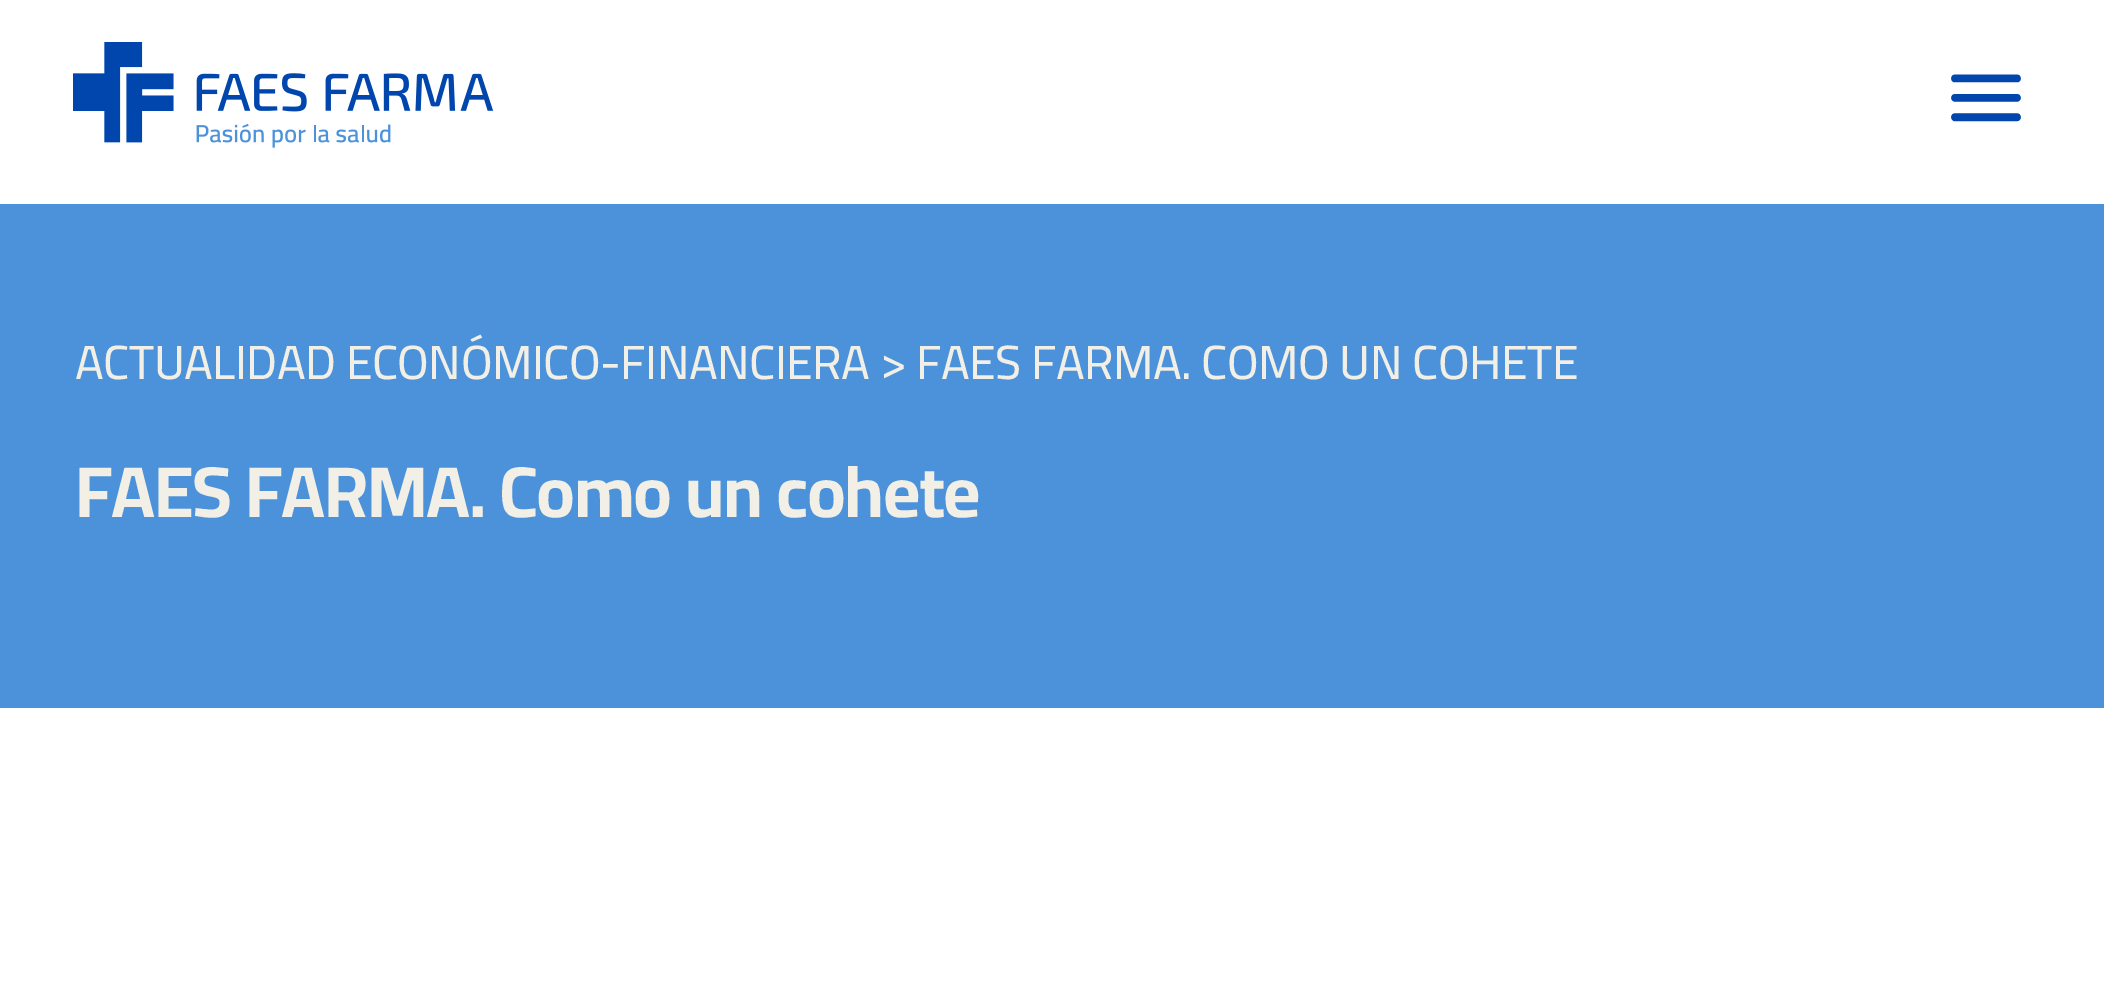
%!PS-Adobe-3.0
%%BoundingBox: 0 0 2104 982
%%LanguageLevel: 3
%%Pages: 1
%%EndComments
%%BeginProlog
/drawimage { 5 dict begin { /h /w /y /x /name } { exch def } forall
  gsave x y translate w h scale
  w h 8 [w 0 0 h 0 0] name (r) file false 3 colorimage grestore end } def
%%EndProlog
%%BeginSetup
<< /PageSize [2104 982] >> setpagedevice
%%EndSetup
%%Page: 1 1
0 982 translate 1 -1 scale
4 setmiterlimit
1 setgray
0 0 2104 982 rectfill
(images/1.raw) 73 42 420 106 drawimage
(images/2.raw) 1951 74 70 48 drawimage
0.294 0.573 0.859 setrgbcolor
0 204 2104 504 rectfill
/Cairo-Medium [48 0 0 -48 0 0] selectfont
0.949 0.941 0.902 setrgbcolor
75 379 moveto -0.48 0 (ACTUALIDAD ECONÓMICO-FINANCIERA > FAES FARMA. COMO UN COHETE) ashow
/Cairo-Bold [72 0 0 -72 0 0] selectfont
75 517 moveto -1.45 0 (FAES FARMA. Como un cohete) ashow
showpage
%%EOF
